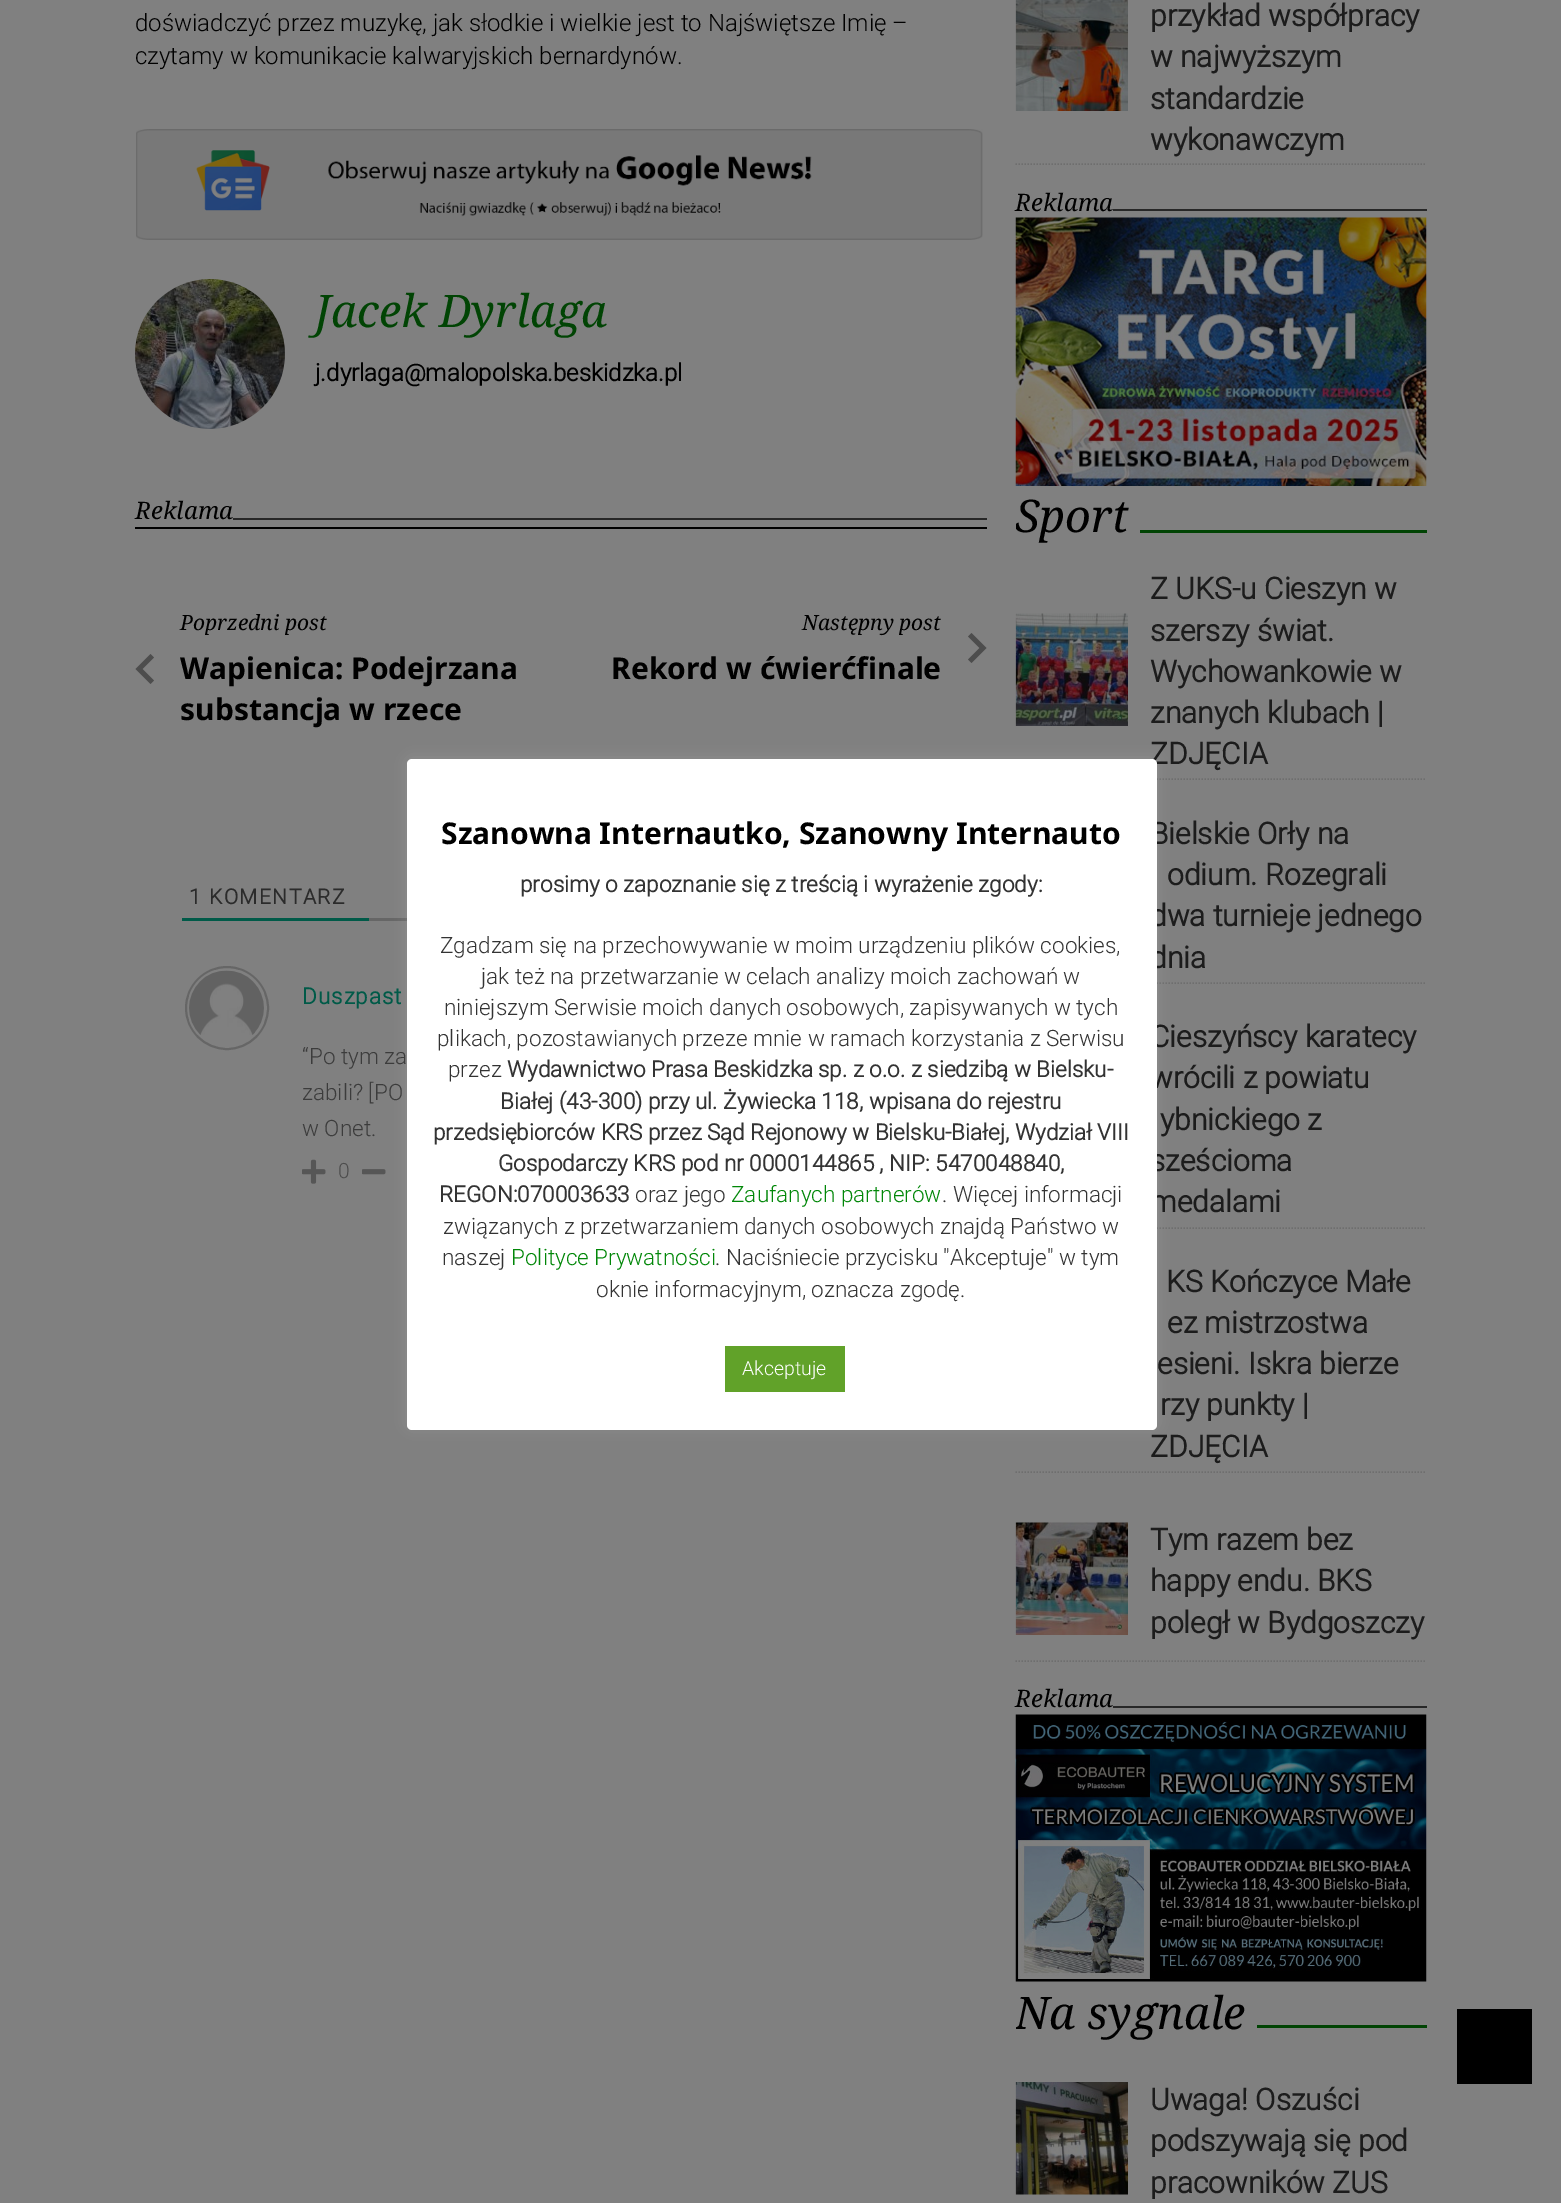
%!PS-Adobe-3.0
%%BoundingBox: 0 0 1561 2203
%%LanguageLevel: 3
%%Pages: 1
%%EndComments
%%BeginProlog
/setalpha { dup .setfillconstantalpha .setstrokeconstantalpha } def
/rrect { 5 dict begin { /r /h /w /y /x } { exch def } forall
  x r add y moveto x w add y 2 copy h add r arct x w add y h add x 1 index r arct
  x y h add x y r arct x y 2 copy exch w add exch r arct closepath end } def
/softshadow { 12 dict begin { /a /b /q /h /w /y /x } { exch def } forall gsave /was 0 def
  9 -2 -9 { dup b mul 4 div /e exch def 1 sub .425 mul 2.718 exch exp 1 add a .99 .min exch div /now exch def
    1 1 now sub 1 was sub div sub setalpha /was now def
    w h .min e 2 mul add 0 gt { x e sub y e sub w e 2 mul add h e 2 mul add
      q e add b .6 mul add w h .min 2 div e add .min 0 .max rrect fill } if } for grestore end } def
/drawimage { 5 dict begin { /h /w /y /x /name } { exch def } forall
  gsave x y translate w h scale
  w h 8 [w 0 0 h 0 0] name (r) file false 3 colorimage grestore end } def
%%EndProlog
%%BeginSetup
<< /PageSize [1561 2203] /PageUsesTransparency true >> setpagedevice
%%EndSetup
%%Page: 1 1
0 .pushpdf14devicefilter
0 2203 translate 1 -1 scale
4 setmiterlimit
0.502 setgray
0 0 1561 2203 rectfill
(images/1.raw) 136 129 847 111 drawimage
(images/2.raw) 135 279 150 150 drawimage
0.153 setgray
233 518 754 2 rectfill
0 setgray
135 527 852 2 rectfill
0.302 setgray
newpath 154 657.5 moveto 142.5 669 lineto 154 680.5 lineto 150.5 684 lineto 135.5 669 lineto 150.5 654 lineto closepath fill
newpath 971.5 633 moveto 986.5 648 lineto 971.5 663 lineto 968 659.5 lineto 979.5 648 lineto 968 636.5 lineto closepath fill
0.4 setgray
369 918 38 3 rectfill
0 0.353 0.282 setrgbcolor
182 918 187 3 rectfill
0.4 setgray
2 setlinewidth
newpath 227 1008 41 0 360 arc closepath stroke
(images/3.raw) 189 970 75 65 drawimage
(images/4.raw) 302 1159 24 25 drawimage
(images/5.raw) 362 1169 24 6 drawimage
0.431 setgray
1.5 setlinewidth
[1.5 1.5] 0 setdash
newpath 1015.5 164 moveto 1426.5 164 lineto stroke
(images/6.raw) 1015 0 113 111 drawimage
0.153 setgray
1113 209 314 2 rectfill
(images/7.raw) 1015 217 412 269 drawimage
0.004 0.267 0.016 setrgbcolor
1140 530 287 3 rectfill
0.431 setgray
newpath 1015.5 779 moveto 1426.5 779 lineto stroke
(images/8.raw) 1015 613 113 113 drawimage
newpath 1015.5 983 moveto 1426.5 983 lineto stroke
newpath 1015.5 1228 moveto 1426.5 1228 lineto stroke
newpath 1015.5 1472 moveto 1426.5 1472 lineto stroke
newpath 1015.5 1661 moveto 1426.5 1661 lineto stroke
(images/9.raw) 1015 1522 113 113 drawimage
0.153 setgray
1113 1706 314 2 rectfill
(images/10.raw) 1015 1714 412 268 drawimage
0.004 0.267 0.016 setrgbcolor
1257 2025 170 3 rectfill
(images/11.raw) 1015 2082 113 113 drawimage
0.675 0.671 0.671 setrgbcolor
407 758 750 670 5 7.5 0.3 softshadow
0 setgray
1457 2009 75 75 rectfill
/Roboto-Light [24 0 0 -24 0 0] selectfont
135 31 moveto (doświadczyć przez muzykę, jak słodkie i wielkie jest to Najświętsze Imię –) show
135 64 moveto (czytamy w komunikacie kalwaryjskich bernardynów.) show
/NotoSerif-Italic [45 0 0 -45 0 0] selectfont
0.004 0.267 0.016 setrgbcolor
315 327 moveto (Jacek Dyrlaga) show
/Roboto-Bold [24 0 0 -24 0 0] selectfont
0 setgray
315 381 moveto (j.dyrlaga@malopolska.beskidzka.pl) show
/NotoSerif-Italic [24 0 0 -24 0 0] selectfont
135 519 moveto (Reklama) show
/NotoSerif-Italic [21 0 0 -21 0 0] selectfont
180 630 moveto (Poprzedni post) show
/NotoSans-Bold [30 0 0 -30 0 0] selectfont
180 679 moveto (Wapienica: Podejrzana) show
180 720 moveto (substancja w rzece) show
/NotoSerif-Italic [21 0 0 -21 0 0] selectfont
802 630 moveto (Następny post) show
/NotoSans-Bold [30 0 0 -30 0 0] selectfont
611 679 moveto (Rekord w ćwierćfinale) show
/Roboto-Bold [21 0 0 -21 0 0] selectfont
0.169 setgray
189 904 moveto 1.5 0 (1 KOMENTARZ) ashow
/Roboto-Bold [22.5 0 0 -22.5 0 0] selectfont
0 0.353 0.282 setrgbcolor
302 1004 moveto 1 0 (Duszpast) ashow
/Roboto-Light [22.5 0 0 -22.5 0 0] selectfont
0.235 setgray
302 1064 moveto (“Po tym za) show
302 1100 moveto (zabili? [PO) show
302 1136 moveto (w Onet.) show
/Roboto-Light [21 0 0 -21 0 0] selectfont
0.302 setgray
338 1178 moveto (0) show
/Roboto-Bold [30 0 0 -30 0 0] selectfont
0.11 setgray
1150 26 moveto (przykład współpracy) show
1150 67 moveto (w najwyższym) show
1150 109 moveto (standardzie) show
1150 150 moveto (wykonawczym) show
/NotoSerif-Italic [24 0 0 -24 0 0] selectfont
0 setgray
1015 211 moveto (Reklama) show
gsave
1016 486 411 59 rectclip
/NotoSerif-Italic [45 0 0 -45 0 0] selectfont
1015 532 moveto (Sport) show
grestore
/Roboto-Bold [30 0 0 -30 0 0] selectfont
0.11 setgray
1150 599 moveto (Z UKS-u Cieszyn w) show
1150 641 moveto (szerszy świat.) show
1150 682 moveto (Wychowankowie w) show
1150 723 moveto (znanych klubach |) show
1150 764 moveto (ZDJĘCIA) show
1150 844 moveto (Bielskie Orły na) show
1167 885 moveto (odium. Rozegrali) show
1150 926 moveto (dwa turnieje jednego) show
1150 968 moveto (dnia) show
1150 1047 moveto (Cieszyńscy karatecy) show
1150 1088 moveto (wrócili z powiatu) show
1160 1130 moveto (ybnickiego z) show
1150 1171 moveto (sześcioma) show
1150 1212 moveto (medalami) show
1166 1292 moveto (KS Kończyce Małe) show
1167 1333 moveto (ez mistrzostwa) show
1157 1374 moveto (esieni. Iskra bierze) show
1160 1415 moveto (rzy punkty |) show
1150 1457 moveto (ZDJĘCIA) show
1150 1550 moveto (Tym razem bez) show
1150 1591 moveto (happy endu. BKS) show
1150 1633 moveto (poległ w Bydgoszczy) show
/NotoSerif-Italic [24 0 0 -24 0 0] selectfont
0 setgray
1015 1707 moveto (Reklama) show
gsave
1016 1982 411 58 rectclip
/NotoSerif-Italic [45 0 0 -45 0 0] selectfont
1015 2029 moveto (Na sygnale) show
grestore
/Roboto-Bold [30 0 0 -30 0 0] selectfont
0.11 setgray
1150 2110 moveto (Uwaga! Oszuści) show
1150 2151 moveto (podszywają się pod) show
1150 2193 moveto (pracowników ZUS) show
1 setgray
407 759 750 671 5 rrect fill
/NotoSans-Bold [30 0 0 -30 0 0] selectfont
0 setgray
441 844 moveto (Szanowna Internautko, Szanowny Internauto) show
/Roboto-Bold [22.5 0 0 -22.5 0 0] selectfont
0.2 setgray
520 892 moveto (prosimy o zapoznanie się z treścią i wyrażenie zgody:) show
/Roboto-Light [22.5 0 0 -22.5 0 0] selectfont
440 953 moveto (Zgadzam się na przechowywanie w moim urządzeniu plików cookies,) show
481 984 moveto (jak też na przetwarzanie w celach analizy moich zachowań w) show
444 1015 moveto (niniejszym Serwisie moich danych osobowych, zapisywanych w tych) show
437 1046 moveto (plikach, pozostawianych przeze mnie w ramach korzystania z Serwisu) show
448 1077 moveto (przez) show
/Roboto-Bold [22.5 0 0 -22.5 0 0] selectfont
507 1077 moveto (Wydawnictwo Prasa Beskidzka sp. z o.o. z siedzibą w Bielsku-) show
500 1109 moveto (Białej \(43-300\) przy ul. Żywiecka 118, wpisana do rejestru) show
433 1140 moveto (przedsiębiorców KRS przez Sąd Rejonowy w Bielsku-Białej, Wydział VIII) show
498 1171 moveto (Gospodarczy KRS pod nr 0000144865 , NIP: 5470048840,) show
439 1202 moveto (REGON:070003633) show
/Roboto-Light [22.5 0 0 -22.5 0 0] selectfont
635 1202 moveto (oraz jego) show
0.004 0.529 0.031 setrgbcolor
731 1202 moveto (Zaufanych partnerów) show
0.2 setgray
942 1202 moveto (. Więcej informacji) show
443 1234 moveto (związanych z przetwarzaniem danych osobowych znajdą Państwo w) show
442 1265 moveto (naszej) show
0.004 0.529 0.031 setrgbcolor
511 1265 moveto (Polityce Prywatności) show
0.2 setgray
715 1265 moveto (. Naciśniecie przycisku "Akceptuje" w tym) show
596 1297 moveto (oknie informacyjnym, oznacza zgodę.) show
0.38 0.635 0.161 setrgbcolor
725 1346 120 46 rectfill
/Roboto-Light [19.5 0 0 -19.5 0 0] selectfont
1 setgray
742 1375 moveto (Akceptuje) show
.poppdf14devicefilter showpage
%%EOF
